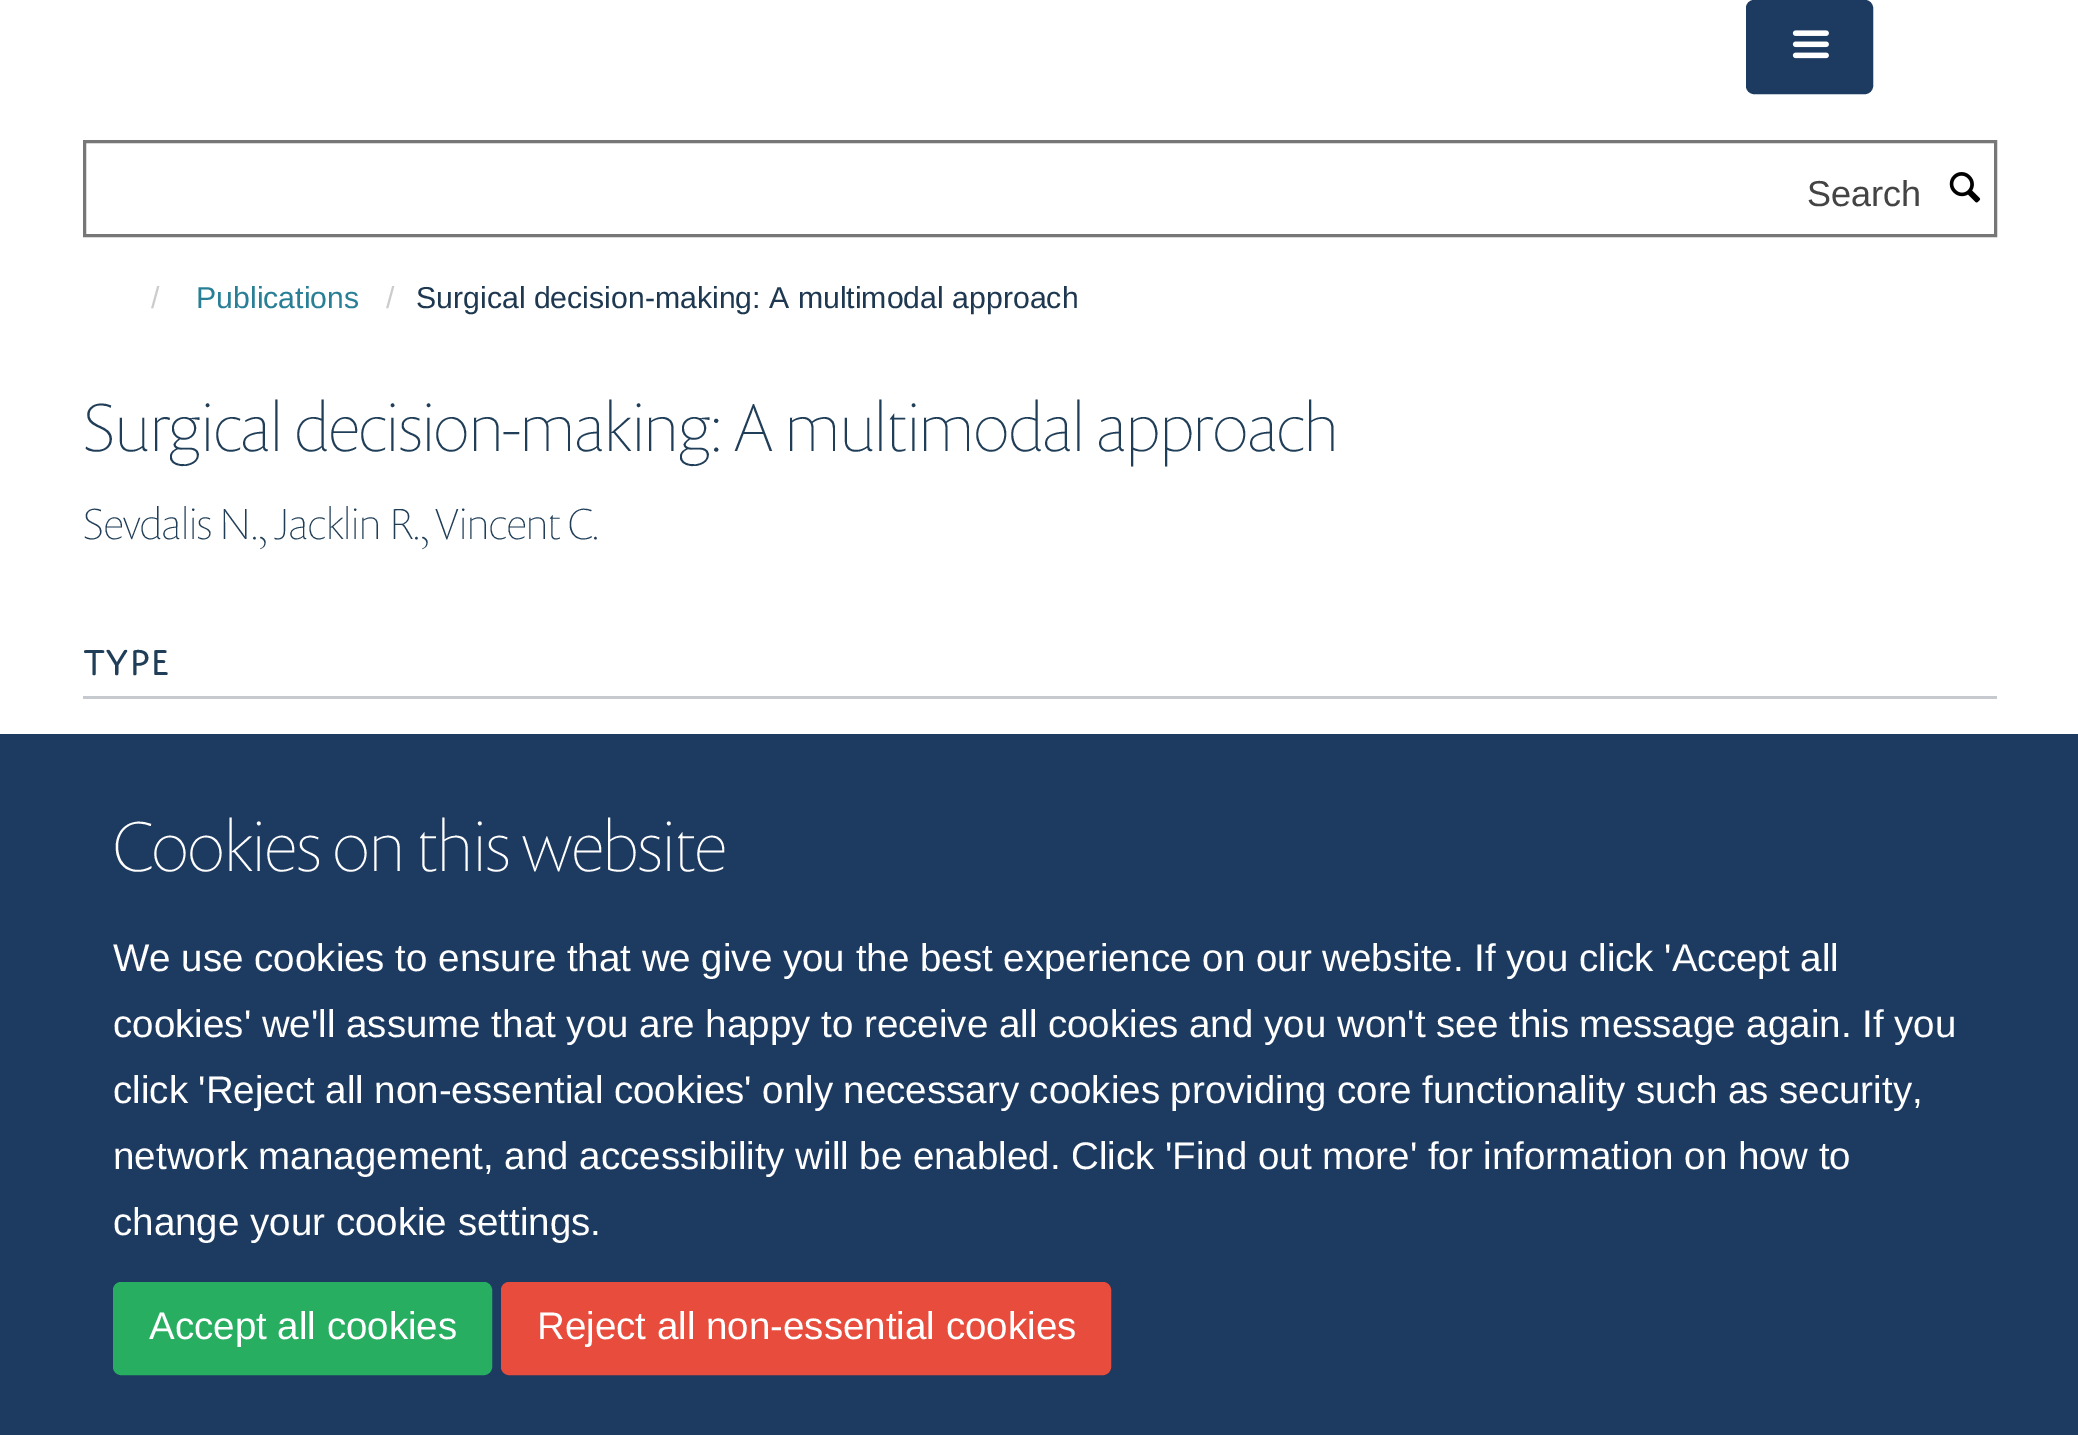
%!PS-Adobe-3.0
%%BoundingBox: 0 0 2078 1435
%%LanguageLevel: 3
%%Pages: 1
%%EndComments
%%BeginProlog
/rrect { 5 dict begin { /r /h /w /y /x } { exch def } forall
  x r add y moveto x w add y 2 copy h add r arct x w add y h add x 1 index r arct
  x y h add x y r arct x y 2 copy exch w add exch r arct closepath end } def
/drawimage { 5 dict begin { /h /w /y /x /name } { exch def } forall
  gsave x y translate w h scale
  w h 8 [w 0 0 h 0 0] name (r) file false 3 colorimage grestore end } def
%%EndProlog
%%BeginSetup
<< /PageSize [2078 1435] >> setpagedevice
%%EndSetup
%%Page: 1 1
0 1435 translate 1 -1 scale
4 setmiterlimit
1 setgray
0 0 2078 1435 rectfill
0.114 0.227 0.38 setrgbcolor
1747.5 1.5 124 91 6.5 rrect gsave fill grestore
3 setlinewidth
stroke
(images/1.raw) 1792 30 37 29 drawimage
0.467 setgray
84.5 141.5 1911 94 rectstroke
(images/2.raw) 1949 172 32 31 drawimage
0.776 0.792 0.812 setrgbcolor
83 696 1914 3 rectfill
0.114 0.227 0.38 setrgbcolor
0 734 2078 701 rectfill
0.153 0.682 0.376 setrgbcolor
114.5 1283.5 376 90 6.5 rrect gsave fill grestore
stroke
0.906 0.298 0.235 setrgbcolor
502.5 1283.5 607 90 6.5 rrect gsave fill grestore
stroke
/LiberationSans-Regular [36 0 0 -36 0 0] selectfont
0.267 setgray
1807 206 moveto (Search) show
/LiberationSans-Regular [30.25 0 0 -30.25 0 0] selectfont
0.8 setgray
151 308 moveto (/) show
0.161 0.502 0.588 setrgbcolor
196 308 moveto (Publications) show
0.8 setgray
386 308 moveto (/) show
0.114 0.22 0.314 setrgbcolor
416 308 moveto (Surgical decision-making: A multimodal approach) show
/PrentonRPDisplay-Thin [68.75 0 0 -68.75 0 0] selectfont
0.125 0.243 0.345 setrgbcolor
83 451 moveto (Surgical decision-making: A multimodal approach) show
/PrentonRPDisplay-Thin [44 0 0 -44 0 0] selectfont
83 539 moveto (Sevdalis N., Jacklin R., Vincent C.) show
/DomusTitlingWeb-Regular [38.5 0 0 -38.5 0 0] selectfont
83 675 moveto (TYPE) show
/PrentonRPDisplay-Thin [71.5 0 0 -71.5 0 0] selectfont
1 setgray
113 871 moveto (Cookies on this website) show
/LiberationSans-Regular [38.5 0 0 -38.5 0 0] selectfont
113 971 moveto (We use cookies to ensure that we give you the best experience on our website. If you click 'Accept all) show
113 1037 moveto (cookies' we'll assume that you are happy to receive all cookies and you won't see this message again. If you) show
113 1103 moveto -0.2 0 32 (click 'Reject all non-essential cookies' only necessary cookies providing core functionality such as security,) widthshow
113 1169 moveto -0.1 0 32 (network management, and accessibility will be enabled. Click 'Find out more' for information on how to) widthshow
113 1235 moveto (change your cookie settings.) show
149 1339 moveto (Accept all cookies) show
537 1339 moveto (Reject all non-essential cookies) show
showpage
%%EOF
